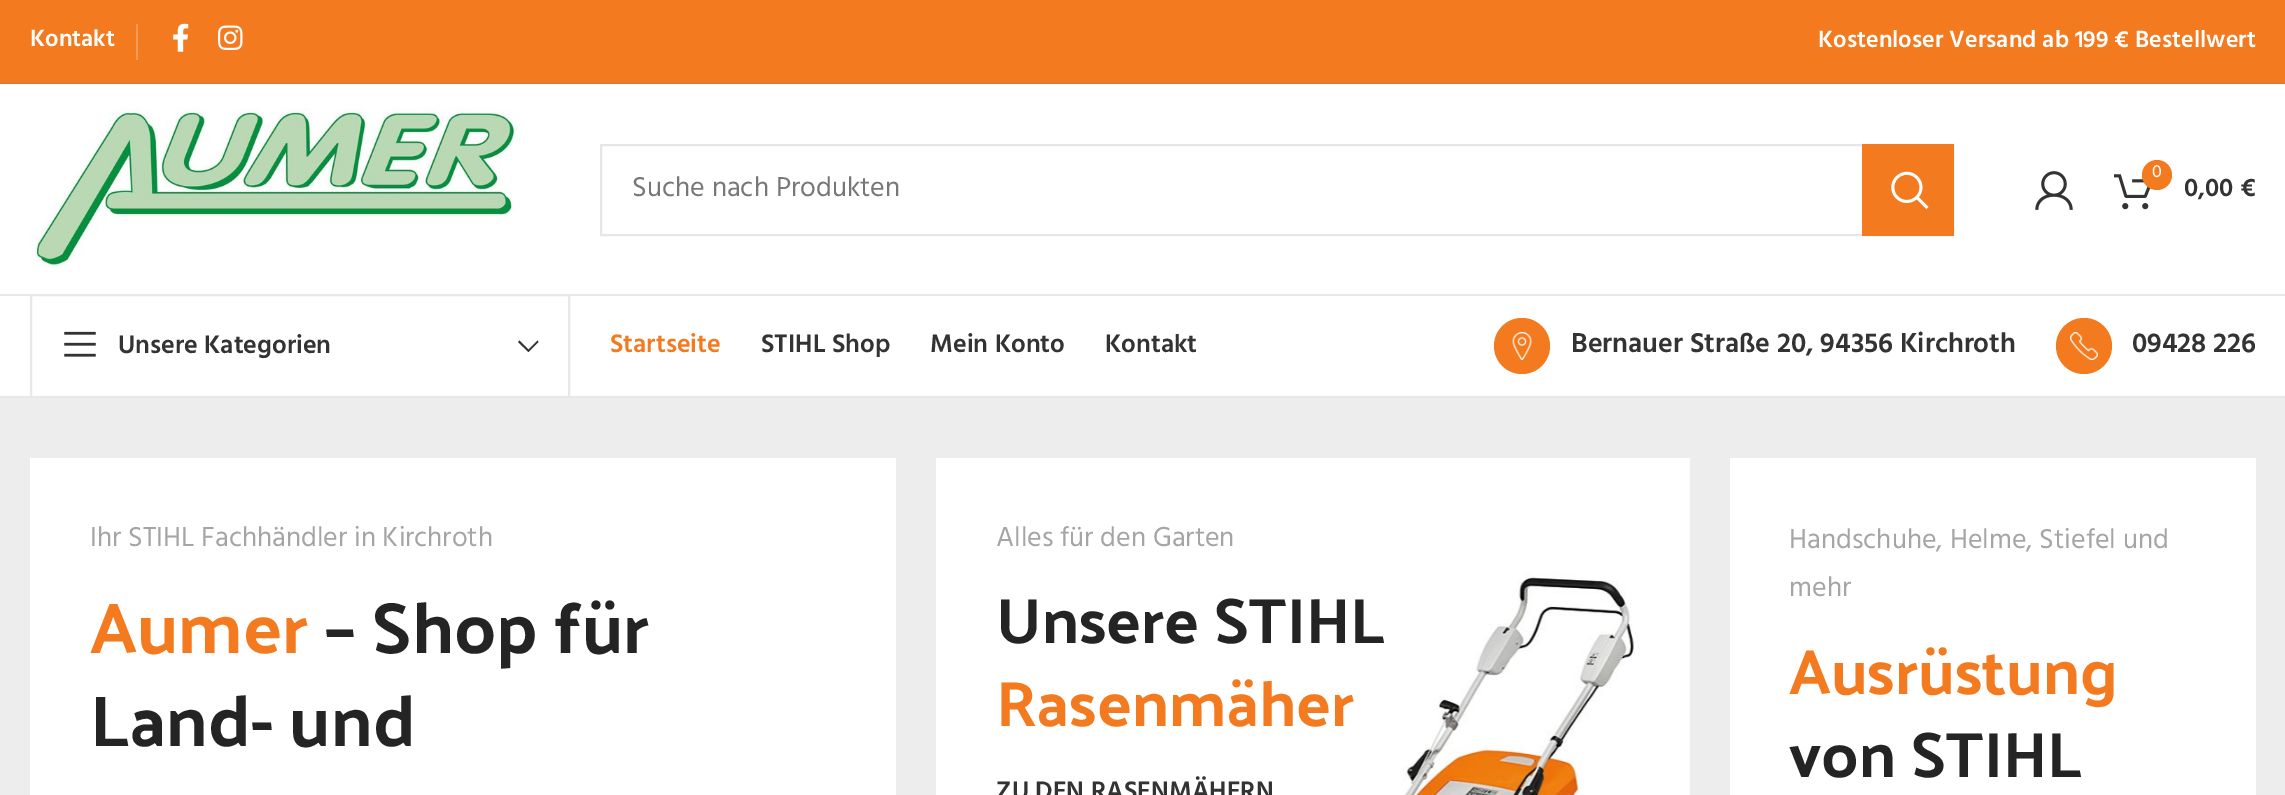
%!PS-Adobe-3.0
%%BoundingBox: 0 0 2285 795
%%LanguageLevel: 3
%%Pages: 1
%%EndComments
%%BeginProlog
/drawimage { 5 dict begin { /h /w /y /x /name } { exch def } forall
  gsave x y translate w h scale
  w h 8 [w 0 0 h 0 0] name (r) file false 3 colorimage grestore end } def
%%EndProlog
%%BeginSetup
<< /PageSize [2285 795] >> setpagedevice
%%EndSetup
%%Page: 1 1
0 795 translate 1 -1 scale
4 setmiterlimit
1 setgray
0 0 2285 795 rectfill
0.953 0.478 0.122 setrgbcolor
0 0 2285 82 rectfill
0.863 0.482 0.192 setrgbcolor
0 82 2285 2 rectfill
0.965 0.608 0.341 setrgbcolor
136 24 2 36 rectfill
(images/1.raw) 173 23 16 29 drawimage
(images/2.raw) 218 25 25 25 drawimage
0.91 setgray
0 294 2285 2 rectfill
(images/3.raw) 30 108 490 159 drawimage
0.902 setgray
2 setlinewidth
601 145 1352 90 rectstroke
0.953 0.478 0.122 setrgbcolor
1862 144 92 92 rectfill
(images/4.raw) 1891 171 38 38 drawimage
(images/5.raw) 2035 171 38 39 drawimage
(images/6.raw) 2114 174 37 36 drawimage
newpath 2157 175 15 0 360 arc closepath fill
0.91 setgray
0 396 2285 2 rectfill
31 295 538 102 rectstroke
(images/7.raw) 64 331 32 26 drawimage
0.2 setgray
newpath 537.5 340.5 moveto 528.5 349.5 lineto 519.5 340.5 lineto 518 342 lineto 528.5 352 lineto 538.5 342 lineto closepath fill
0.953 0.478 0.122 setrgbcolor
newpath 1522 346 28 0 360 arc closepath fill
(images/8.raw) 1512 332 20 28 drawimage
newpath 2084 346 28 0 360 arc closepath fill
(images/9.raw) 2070 332 28 28 drawimage
0.929 setgray
0 398 2285 397 rectfill
1 setgray
30 458 866 337 rectfill
(images/10.raw) 936 458 754 337 drawimage
1730 458 526 337 rectfill
/Hind-SemiBold [24 0 0 -24 0 0] selectfont
30 46 moveto (Kontakt) show
1818 47 moveto (Kostenloser Versand ab 199 € Bestellwert) show
/Hind-Regular [28 0 0 -28 0 0] selectfont
0.467 setgray
632 196 moveto (Suche nach Produkten) show
/Hind-Regular [18 0 0 -18 0 0] selectfont
1 setgray
2152 177 moveto (0) show
/Hind-SemiBold [26 0 0 -26 0 0] selectfont
0.2 setgray
2184 196 moveto (0,00 €) show
118 353 moveto (Unsere Kategorien) show
0.953 0.478 0.122 setrgbcolor
610 352 moveto (Startseite) show
0.2 setgray
761 352 moveto (STIHL Shop) show
930 352 moveto (Mein Konto) show
1105 352 moveto (Kontakt) show
/Hind-SemiBold [28 0 0 -28 0 0] selectfont
1571 352 moveto (Bernauer Straße 20, 94356 Kirchroth) show
2132 352 moveto (09428 226) show
/Hind-Regular [28 0 0 -28 0 0] selectfont
0.647 setgray
90 546 moveto (Ihr STIHL Fachhändler in Kirchroth) show
/PalanquinDark-Regular [72 0 0 -72 0 0] selectfont
0.953 0.478 0.122 setrgbcolor
90 653 moveto (Aumer) show
0.141 setgray
325 653 moveto (– Shop für) show
90 746 moveto (Land- und) show
/Hind-Regular [28 0 0 -28 0 0] selectfont
0.647 setgray
996 546 moveto (Alles für den Garten) show
/PalanquinDark-Regular [64 0 0 -64 0 0] selectfont
0.141 setgray
996 643 moveto (Unsere STIHL) show
0.953 0.478 0.122 setrgbcolor
996 726 moveto (Rasenmäher) show
/Hind-SemiBold [26 0 0 -26 0 0] selectfont
0.2 setgray
996 799 moveto (ZU DEN RASENMÄHERN) show
/Hind-Regular [28 0 0 -28 0 0] selectfont
0.647 setgray
1789 548 moveto (Handschuhe, Helme, Stiefel und) show
1789 596 moveto (mehr) show
/PalanquinDark-Regular [64 0 0 -64 0 0] selectfont
0.953 0.478 0.122 setrgbcolor
1789 694 moveto (Ausrüstung) show
0.141 setgray
1789 777 moveto (von STIHL) show
showpage
%%EOF
